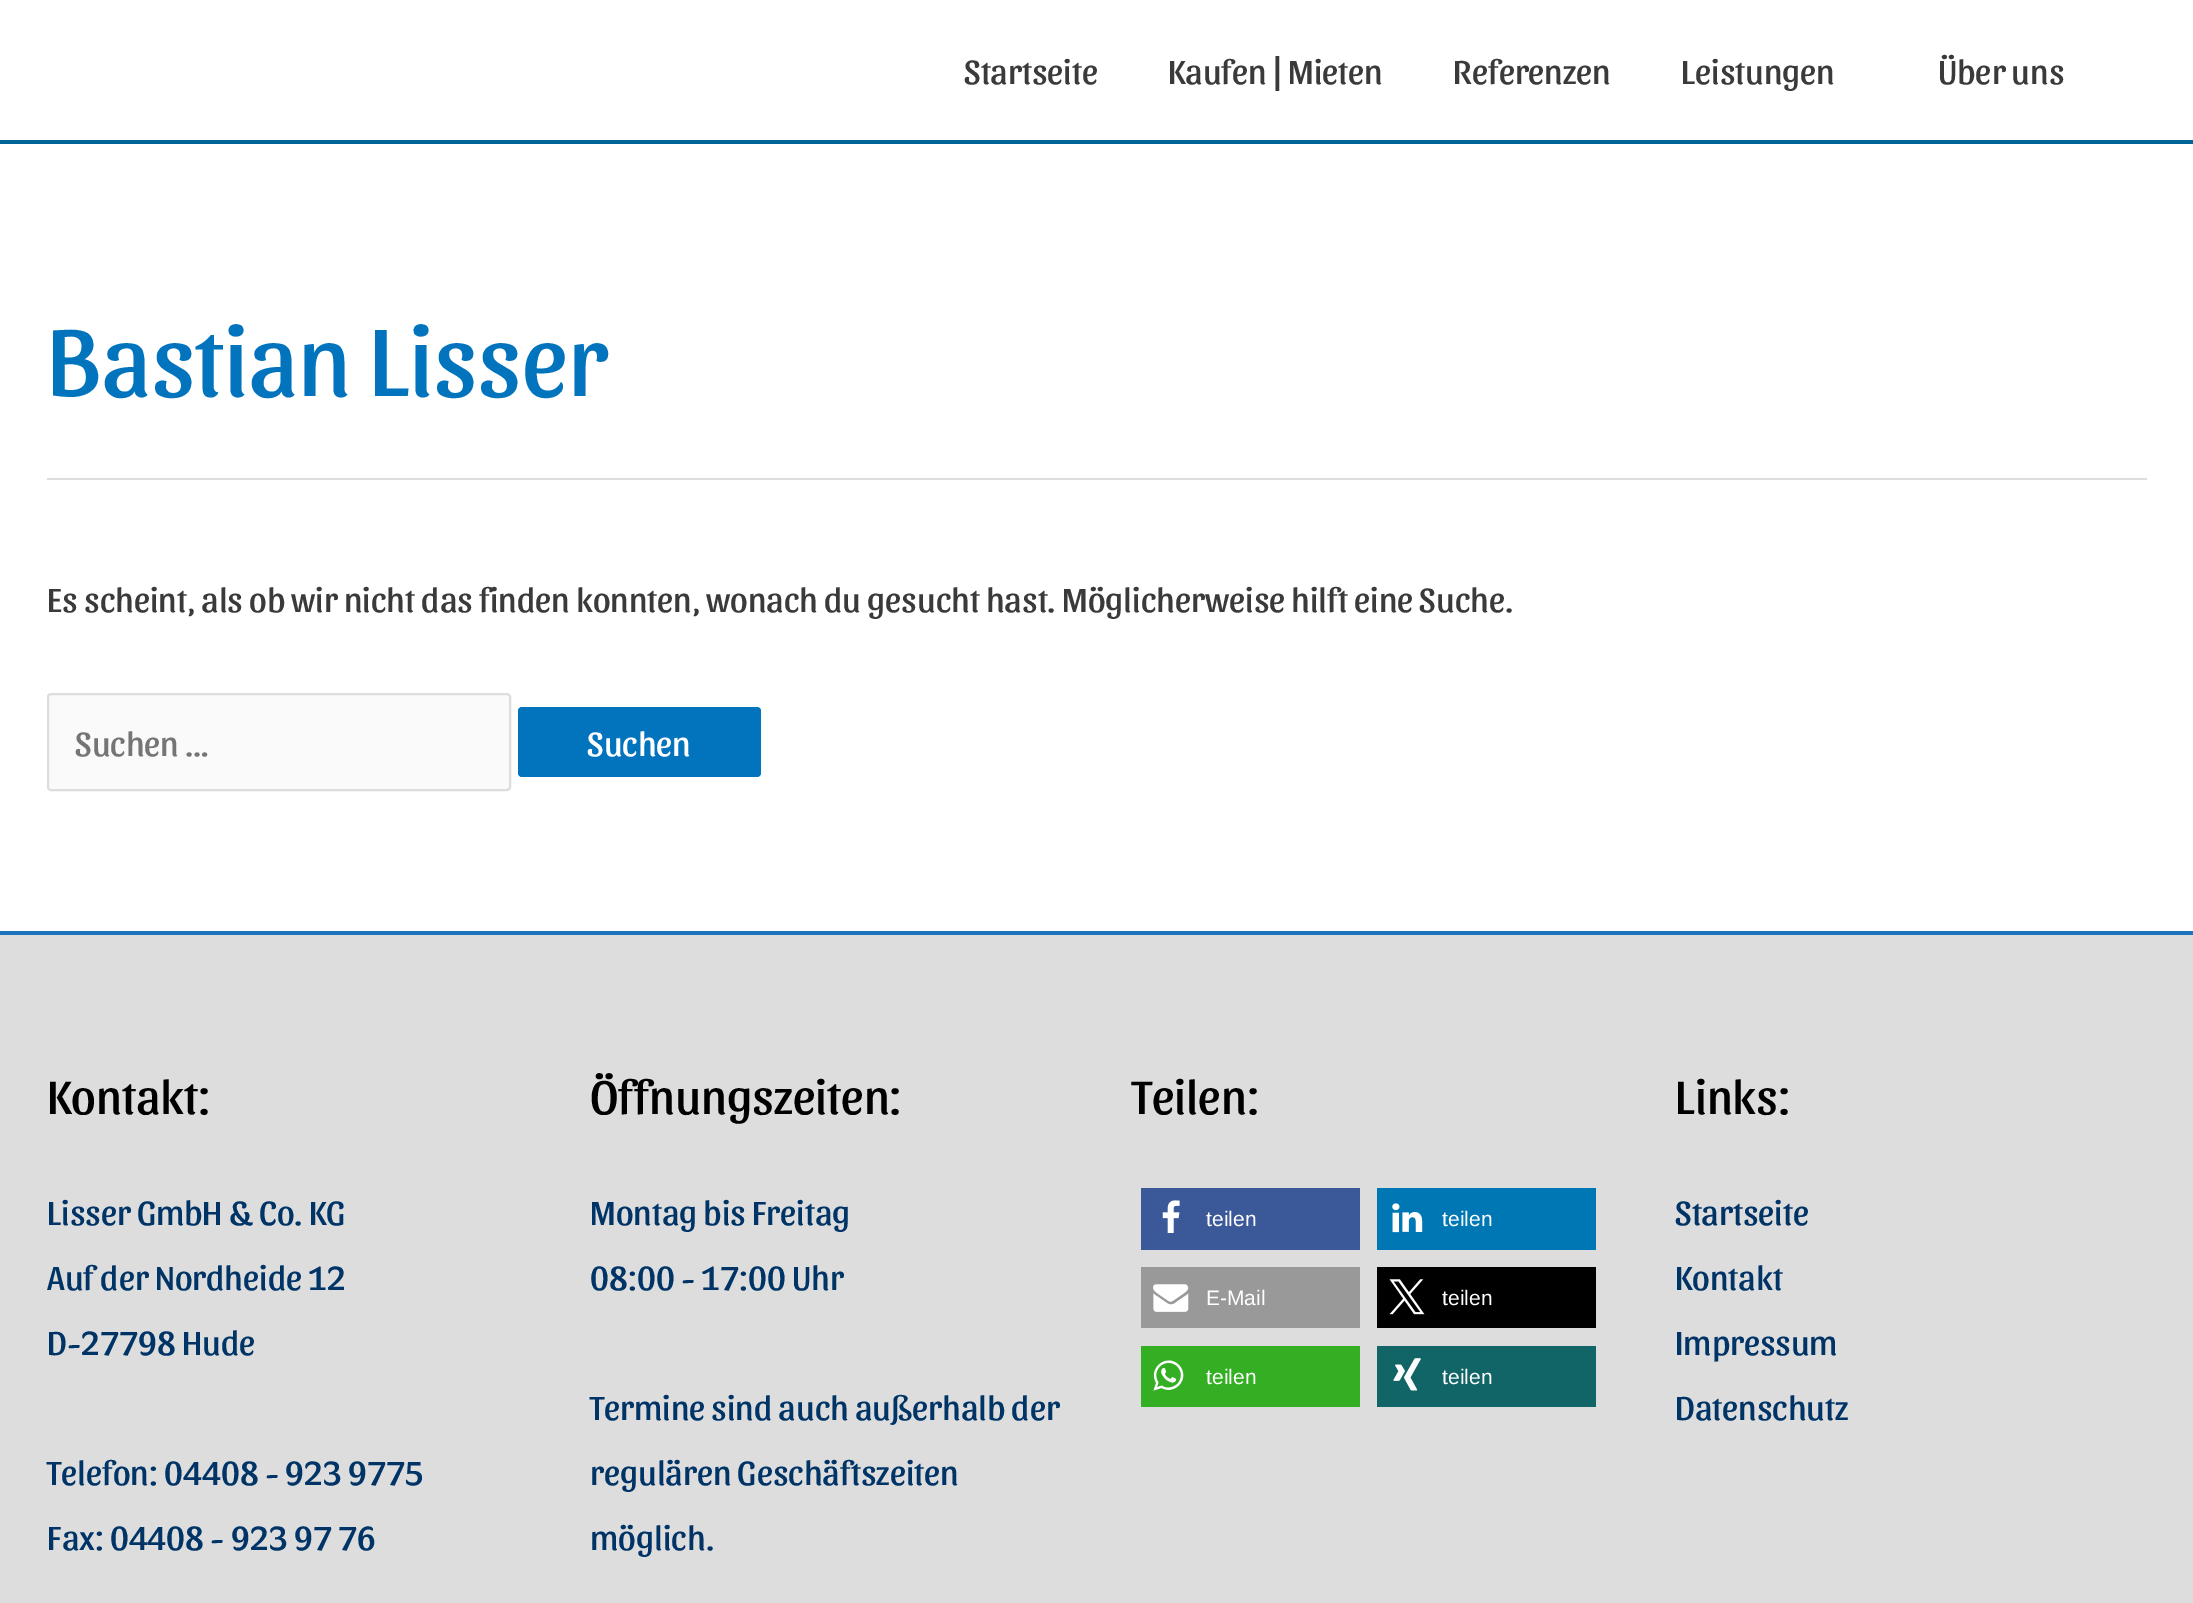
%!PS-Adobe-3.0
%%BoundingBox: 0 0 2193 1603
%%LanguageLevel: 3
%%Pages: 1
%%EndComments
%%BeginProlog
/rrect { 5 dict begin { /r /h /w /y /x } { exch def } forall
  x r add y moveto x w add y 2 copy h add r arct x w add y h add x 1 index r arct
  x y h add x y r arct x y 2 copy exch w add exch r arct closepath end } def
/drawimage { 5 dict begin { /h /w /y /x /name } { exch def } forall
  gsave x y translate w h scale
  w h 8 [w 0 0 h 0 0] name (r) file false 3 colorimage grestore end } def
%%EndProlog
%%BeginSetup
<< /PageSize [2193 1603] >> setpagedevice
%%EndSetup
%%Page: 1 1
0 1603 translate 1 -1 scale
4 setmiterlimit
1 setgray
0 0 2193 1603 rectfill
0 0.4 0.6 setrgbcolor
0 140 2193 4 rectfill
0.867 setgray
47 478 2100 2 rectfill
0.98 setgray
48 694 462 96 3 rrect gsave fill grestore
0.867 setgray
2 setlinewidth
stroke
0.008 0.455 0.745 setrgbcolor
518 707 243 70 4 rrect fill
0.867 setgray
0 935 2193 668 rectfill
0.118 0.451 0.745 setrgbcolor
0 931 2193 4 rectfill
0.231 0.349 0.596 setrgbcolor
1141 1188 219 62 rectfill
(images/1.raw) 1162 1200 18 33 drawimage
0 0.467 0.71 setrgbcolor
1377 1188 219 62 rectfill
(images/2.raw) 1392 1203 31 30 drawimage
0.6 setgray
1141 1267 219 61 rectfill
(images/3.raw) 1153 1284 36 28 drawimage
0 setgray
1377 1267 219 61 rectfill
(images/4.raw) 1389 1279 36 36 drawimage
0.204 0.686 0.137 setrgbcolor
1141 1346 219 61 rectfill
(images/5.raw) 1153 1360 31 31 drawimage
0.071 0.396 0.404 setrgbcolor
1377 1346 219 61 rectfill
(images/6.raw) 1393 1358 28 33 drawimage
/Sansita-Regular [35 0 0 -35 0 0] selectfont
0.227 setgray
964 84 moveto (Startseite) show
1168 84 moveto (Kaufen | Mieten) show
1453 84 moveto (Referenzen) show
1681 84 moveto (Leistungen) show
1938 84 moveto (Über uns) show
/Sansita-Regular [100 0 0 -100 0 0] selectfont
0.008 0.455 0.745 setrgbcolor
47 396 moveto (Bastian Lisser) show
/Sansita-Regular [35 0 0 -35 0 0] selectfont
0.227 setgray
47 612 moveto (Es scheint, als ob wir nicht das finden konnten, wonach du gesucht hast. Möglicherweise hilft eine Suche.) show
0.459 setgray
75 756 moveto (Suchen …) show
1 setgray
587 756 moveto (Suchen) show
/Sansita-Regular [49 0 0 -49 0 0] selectfont
0 setgray
47 1114 moveto (Kontakt:) show
/Sansita-Regular [35 0 0 -35 0 0] selectfont
0 0.2 0.4 setrgbcolor
47 1225 moveto (Lisser GmbH & Co. KG) show
47 1290 moveto (Auf der Nordheide 12) show
47 1355 moveto (D-27798 Hude) show
47 1485 moveto (Telefon: 04408 - 923 9775) show
47 1550 moveto (Fax: 04408 - 923 97 76) show
/Sansita-Regular [49 0 0 -49 0 0] selectfont
0 setgray
590 1114 moveto (Öffnungszeiten:) show
/Sansita-Regular [35 0 0 -35 0 0] selectfont
0 0.2 0.4 setrgbcolor
590 1225 moveto (Montag bis Freitag) show
590 1290 moveto (08:00 - 17:00 Uhr) show
590 1420 moveto (Termine sind auch außerhalb der) show
590 1485 moveto (regulären Geschäftszeiten) show
590 1550 moveto (möglich.) show
/Sansita-Regular [49 0 0 -49 0 0] selectfont
0 setgray
1132 1114 moveto (Teilen:) show
/LiberationSans-Regular [21 0 0 -21 0 0] selectfont
1 setgray
1206 1226 moveto (teilen) show
1442 1226 moveto (teilen) show
1206 1305 moveto (E-Mail) show
1442 1305 moveto (teilen) show
1206 1384 moveto (teilen) show
1442 1384 moveto (teilen) show
/Sansita-Regular [49 0 0 -49 0 0] selectfont
0 setgray
1675 1114 moveto (Links:) show
/Sansita-Regular [35 0 0 -35 0 0] selectfont
0 0.2 0.4 setrgbcolor
1675 1225 moveto (Startseite) show
1675 1290 moveto (Kontakt) show
1675 1355 moveto (Impressum) show
1675 1420 moveto (Datenschutz) show
showpage
%%EOF
